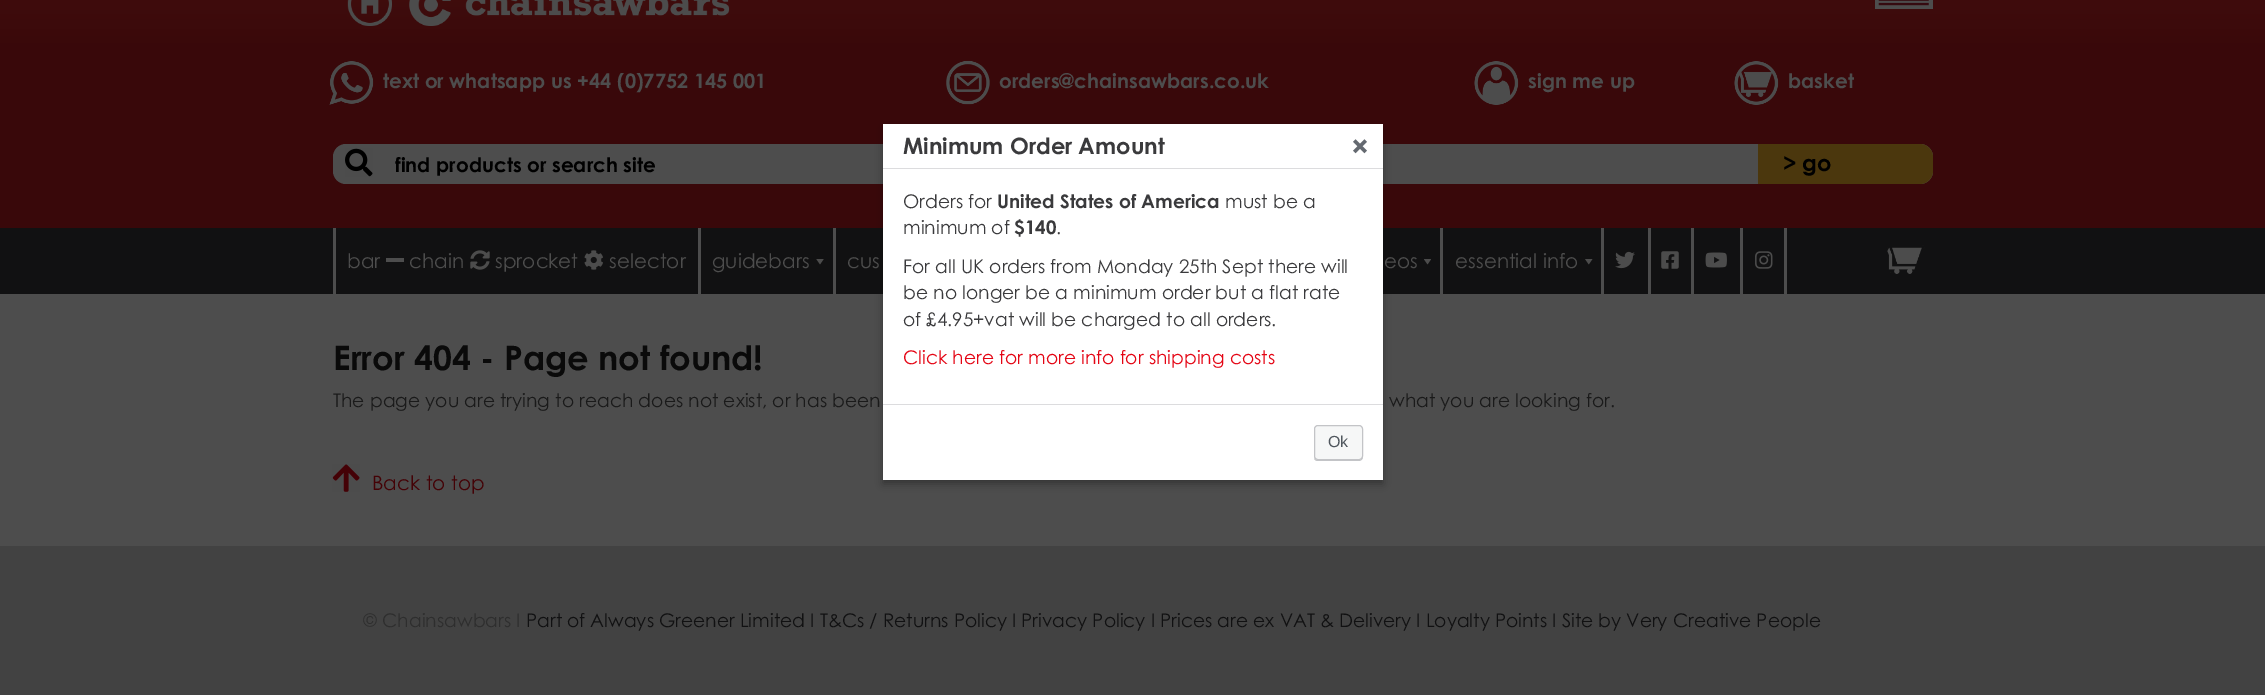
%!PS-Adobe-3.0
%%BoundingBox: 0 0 2265 695
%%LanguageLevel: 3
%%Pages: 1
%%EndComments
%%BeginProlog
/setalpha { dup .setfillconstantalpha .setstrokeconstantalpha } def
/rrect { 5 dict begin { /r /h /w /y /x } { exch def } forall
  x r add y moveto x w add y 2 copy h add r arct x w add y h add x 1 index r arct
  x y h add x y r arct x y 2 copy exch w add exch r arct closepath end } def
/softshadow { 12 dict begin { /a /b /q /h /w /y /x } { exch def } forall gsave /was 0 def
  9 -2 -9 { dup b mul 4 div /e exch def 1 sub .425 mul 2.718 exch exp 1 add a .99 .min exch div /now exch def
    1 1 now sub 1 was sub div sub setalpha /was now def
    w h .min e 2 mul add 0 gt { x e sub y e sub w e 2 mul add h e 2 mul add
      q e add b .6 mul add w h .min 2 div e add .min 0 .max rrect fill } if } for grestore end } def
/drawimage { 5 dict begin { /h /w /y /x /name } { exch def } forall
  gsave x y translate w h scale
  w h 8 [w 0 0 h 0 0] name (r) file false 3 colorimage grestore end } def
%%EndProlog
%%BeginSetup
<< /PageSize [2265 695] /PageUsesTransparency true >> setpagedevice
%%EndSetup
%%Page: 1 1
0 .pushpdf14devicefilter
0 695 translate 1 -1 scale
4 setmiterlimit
0.302 setgray
0 0 2265 695 rectfill
gsave newpath 0 0 moveto 2265 0 lineto 2265 228 lineto 0 228 lineto closepath clip newpath
<< /ShadingType 2 /ColorSpace /DeviceRGB /Coords [1133 -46 1133 228] /Extend [true true] /Function << /FunctionType 3 /Domain [0 1] /Functions [<< /FunctionType 2 /Domain [0 1] /C0 [0.267 0.063 0.059] /C1 [0.224 0.031 0.039] /N 1 >> << /FunctionType 2 /Domain [0 1] /C0 [0.224 0.031 0.039] /C1 [0.224 0.031 0.039] /N 1 >>] /Bounds [0.35] /Encode [0 1 0 1] >> >> shfill grestore
(images/1.raw) 347 0 383 26 drawimage
1875 0 58 9 rectfill
(images/2.raw) 1878 0 51 6 drawimage
(images/3.raw) 329 61 45 44 drawimage
(images/4.raw) 946 60 44 45 drawimage
(images/5.raw) 1474 61 45 44 drawimage
(images/6.raw) 1734 61 45 44 drawimage
333 144 1600 40 13 rrect fill
(images/7.raw) 345 148 28 29 drawimage
0.294 0.216 0.051 setrgbcolor
newpath 1758 144 moveto 1920 144 lineto 1927 144 1933 150 1933 157 curveto 1933 171 lineto 1933 178 1927 184 1920 184 curveto 1758 184 lineto closepath fill
0.067 0.067 0.071 setrgbcolor
0 228 2265 66 rectfill
0.302 setgray
698 228 3 66 rectfill
333 228 3 66 rectfill
386 258 18 4 rectfill
(images/8.raw) 470 250 20 20 drawimage
(images/9.raw) 584 250 19 20 drawimage
833 228 3 66 rectfill
(images/10.raw) 816 259 8 6 drawimage
1440 228 3 66 rectfill
(images/11.raw) 1424 259 7 6 drawimage
1601 228 3 66 rectfill
(images/12.raw) 1585 259 8 6 drawimage
1648 228 3 66 rectfill
(images/13.raw) 1615 251 20 18 drawimage
1691 228 3 66 rectfill
(images/14.raw) 1661 251 18 18 drawimage
1740 228 3 66 rectfill
(images/15.raw) 1705 252 22 16 drawimage
1784 228 3 66 rectfill
(images/16.raw) 1755 251 18 18 drawimage
(images/17.raw) 1887 245 38 29 drawimage
(images/18.raw) 332 464 28 28 drawimage
0.259 setgray
0 546 2265 149 rectfill
0 setgray
883 128 500 356 0 4 0.3 softshadow
1 setgray
883 124 500 356 rectfill
0.863 0.863 0.871 setrgbcolor
883 168 500 1 rectfill
(images/19.raw) 1353 139 14 15 drawimage
883 404 500 1 rectfill
0.765 0.769 0.78 setrgbcolor
newpath 1314 458 moveto 1314 460 1316 461 1318 461 curveto 1359 461 lineto 1361 461 1363 459 1363 457 curveto 1363 430 lineto 1362 428 lineto 1363 431 1363 457 1362 458 curveto 1360 460 lineto 1324 460 lineto 1322 460 1316 461 1314 458 curveto closepath fill
0.965 0.969 0.969 setrgbcolor
1314.5 425.5 48 34 3.5 rrect gsave fill grestore
0.765 0.769 0.78 setrgbcolor
stroke
/CenturyGothic-Bold [20 0 0 -20 0 0] selectfont
0.302 setgray
383 88 moveto (text or whatsapp us +44 \(0\)7752 145 001) show
999 88 moveto (orders@chainsawbars.co.uk) show
1528 88 moveto (sign me up) show
1788 88 moveto (basket) show
0 setgray
395 172 moveto (find products or search site) show
/CenturyGothic-Bold [22.5 0 0 -22.5 0 0] selectfont
1783 171 moveto (>) show
1802 171 moveto (go) show
/CenturyGothic-Regular [20 0 0 -20 0 0] selectfont
0.302 setgray
347 268 moveto (bar) show
409 268 moveto (chain) show
495 268 moveto (sprocket) show
609 268 moveto (selector) show
712 268 moveto (guidebars) show
847 268 moveto (cus) show
1384 268 moveto (eos) show
1455 268 moveto (essential info) show
/CenturyGothic-Bold [33.75 0 0 -33.75 0 0] selectfont
0.039 setgray
333 370 moveto (Error 404 - Page not found!) show
/CenturyGothic-Regular [18.75 0 0 -18.75 0 0] selectfont
0.102 setgray
333 407 moveto (The page you are trying to reach does not exist, or has been) show
1389 407 moveto (what you are looking for.) show
/CenturyGothic-Regular [20 0 0 -20 0 0] selectfont
0.267 0.008 0.024 setrgbcolor
372 490 moveto (Back to top) show
/CenturyGothic-Regular [18.75 0 0 -18.75 0 0] selectfont
0.18 setgray
363 627 moveto (© Chainsawbars I) show
0.067 0.067 0.071 setrgbcolor
526 627 moveto (Part of Always Greener Limited I T&Cs / Returns Policy I Privacy Policy I Prices are ex VAT & Delivery I Loyalty Points I Site by Very Creative People) show
/CenturyGothic-Bold [22.5 0 0 -22.5 0 0] selectfont
0.227 0.227 0.235 setrgbcolor
903 154 moveto (Minimum Order Amount) show
/CenturyGothic-Regular [18.75 0 0 -18.75 0 0] selectfont
903 208 moveto (Orders for) show
/CenturyGothic-Bold [18.75 0 0 -18.75 0 0] selectfont
997 208 moveto (United States of America) show
/CenturyGothic-Regular [18.75 0 0 -18.75 0 0] selectfont
1225 208 moveto (must be a) show
903 234 moveto (minimum of) show
/CenturyGothic-Bold [18.75 0 0 -18.75 0 0] selectfont
1014 234 moveto ($140) show
/CenturyGothic-Regular [18.75 0 0 -18.75 0 0] selectfont
1056 234 moveto (.) show
903 273 moveto (For all UK orders from Monday 25th Sept there will) show
903 299 moveto (be no longer be a minimum order but a flat rate) show
903 326 moveto (of £4.95+vat will be charged to all orders.) show
0.894 0.02 0.078 setrgbcolor
903 364 moveto (Click here for more info for shipping costs) show
/LiberationSans-Regular [16 0 0 -16 0 0] selectfont
0.314 0.341 0.369 setrgbcolor
1328 447 moveto (Ok) show
.poppdf14devicefilter showpage
%%EOF
